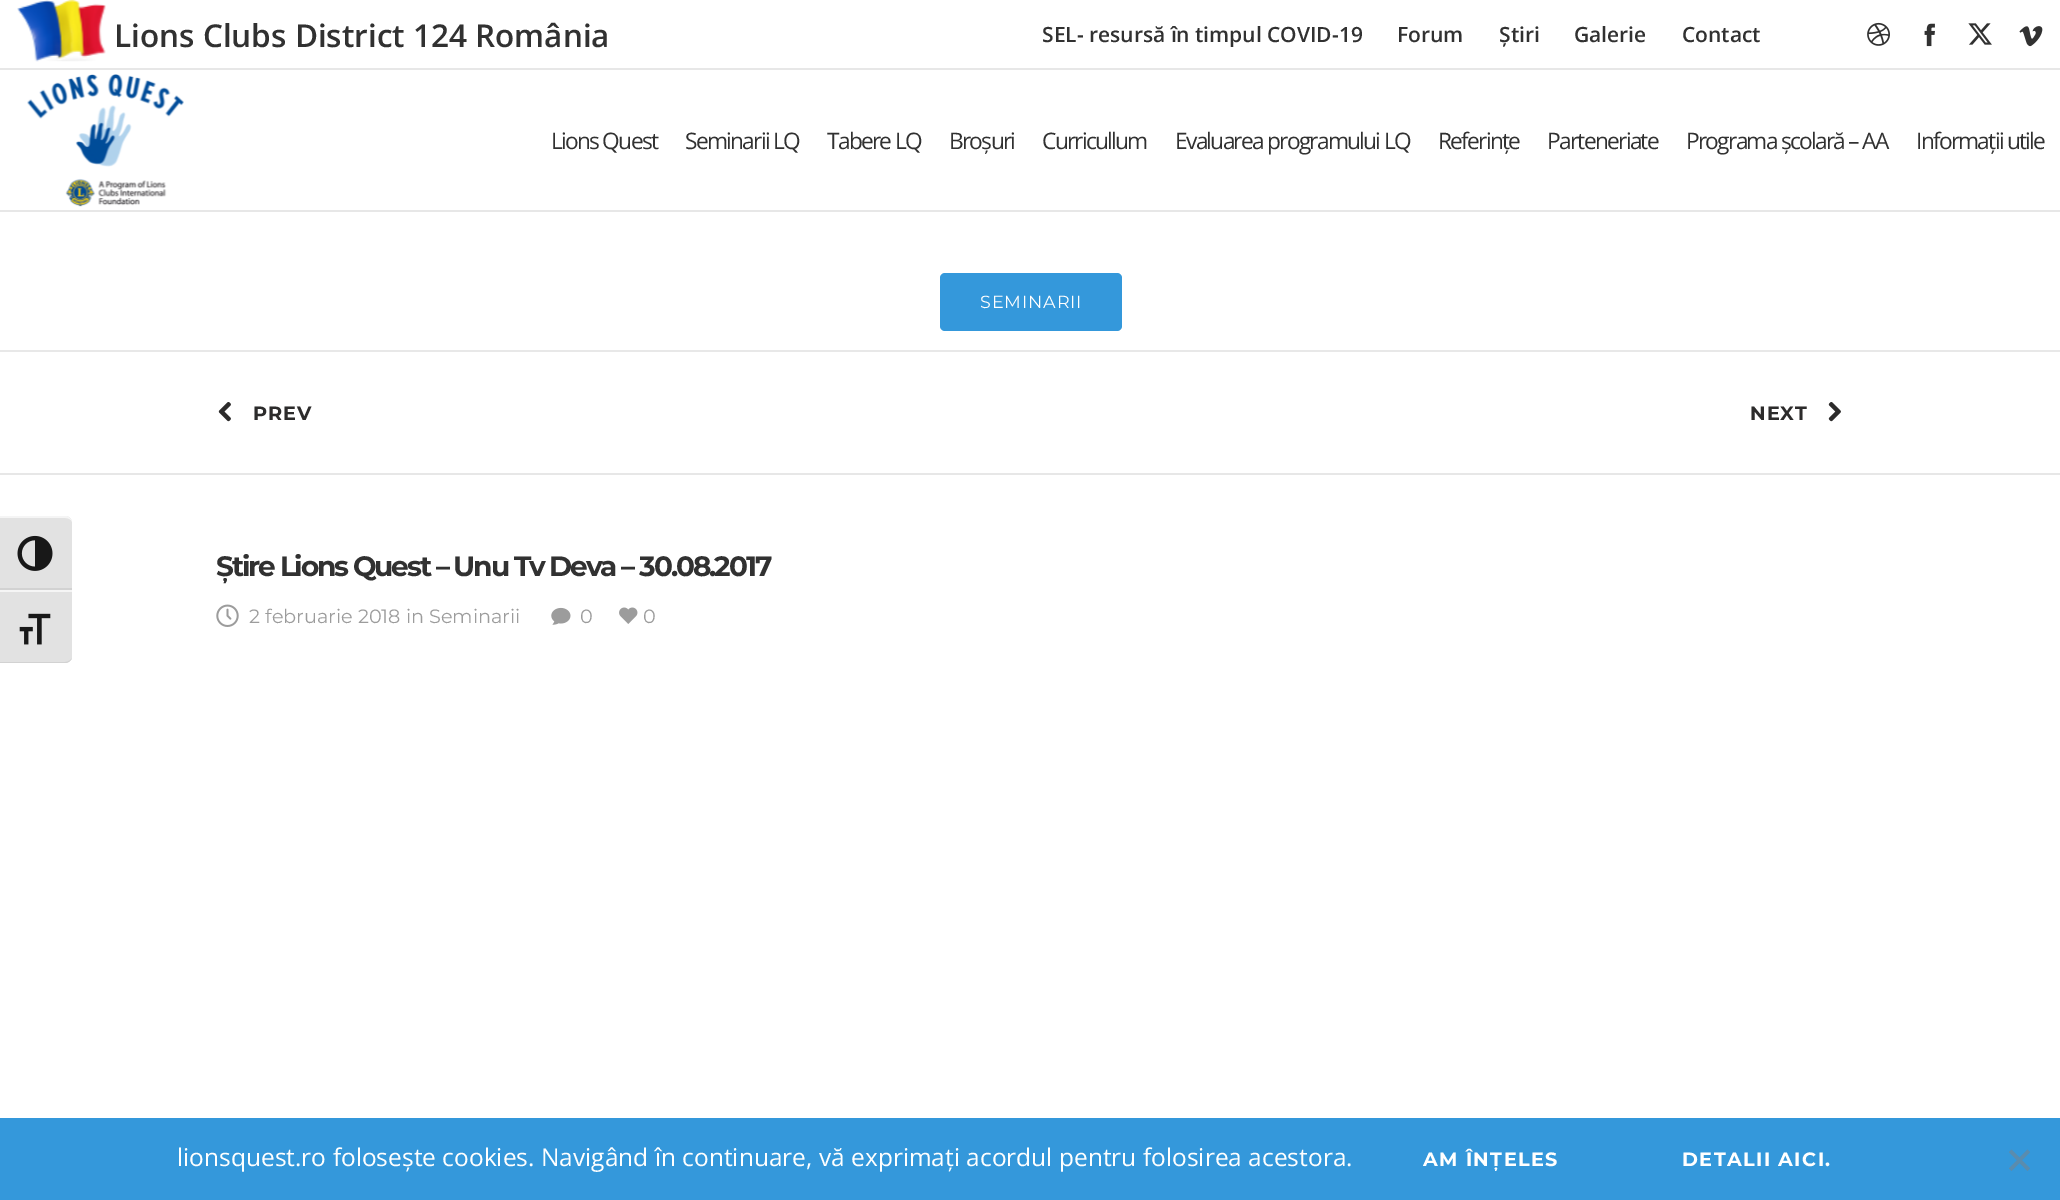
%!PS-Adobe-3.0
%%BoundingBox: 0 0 2060 1200
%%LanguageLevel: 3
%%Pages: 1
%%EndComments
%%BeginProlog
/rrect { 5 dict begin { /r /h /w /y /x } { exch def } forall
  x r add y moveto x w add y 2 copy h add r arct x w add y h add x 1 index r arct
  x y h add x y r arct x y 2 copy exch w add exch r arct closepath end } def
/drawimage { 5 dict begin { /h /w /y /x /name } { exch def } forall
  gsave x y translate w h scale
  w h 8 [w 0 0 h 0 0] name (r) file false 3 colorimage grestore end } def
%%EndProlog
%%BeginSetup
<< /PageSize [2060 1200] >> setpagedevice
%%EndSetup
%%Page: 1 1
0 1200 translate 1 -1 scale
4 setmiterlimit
1 setgray
0 0 2060 1200 rectfill
0.906 setgray
0 210 2060 2 rectfill
0 68 2060 2 rectfill
(images/1.raw) 17 0 89 62 drawimage
(images/2.raw) 1867 22 23 24 drawimage
(images/3.raw) 1924 23 11 24 drawimage
(images/4.raw) 1968 23 24 22 drawimage
(images/5.raw) 2019 26 24 21 drawimage
(images/6.raw) 27 74 157 133 drawimage
0.886 setgray
newpath 0 516 moveto 65 516 lineto 69 516 72 519 72 523 curveto 72 590 lineto 0 590 lineto closepath fill
0.961 setgray
newpath 0 518 moveto 65 518 lineto 68 518 71 519 72 522 curveto 72 521 lineto 71 519 69 517 67 516 curveto 0 516 lineto closepath fill
0.824 setgray
0 588 72 2 rectfill
(images/7.raw) 17 535 36 36 drawimage
0.886 setgray
newpath 0 590 moveto 72 590 lineto 72 656 lineto 72 660 69 663 65 663 curveto 0 663 lineto closepath fill
0.961 setgray
0 590 72 2 rectfill
0.824 setgray
newpath 0 662 moveto 0 663 lineto 65 663 lineto 68 663 71 661 72 658 curveto 71 660 68 662 65 662 curveto closepath fill
(images/8.raw) 19 613 32 32 drawimage
0.204 0.596 0.859 setrgbcolor
940 273 182 58 5 rrect fill
0.91 setgray
0 350 2060 2 rectfill
(images/9.raw) 218 402 13 20 drawimage
(images/10.raw) 1828 402 13 20 drawimage
0.906 setgray
0 473 2060 2 rectfill
(images/11.raw) 216 604 23 23 drawimage
(images/12.raw) 551 607 20 18 drawimage
(images/13.raw) 619 607 19 17 drawimage
0.204 0.596 0.859 setrgbcolor
0 1118 2060 82 rectfill
0.353 0.549 0.682 setrgbcolor
newpath 2027.5 1149.5 moveto 2030 1152 lineto 2011.5 1171 lineto 2009 1168.5 lineto closepath fill
newpath 2009 1152 moveto 2011.5 1149.5 lineto 2030 1168.5 lineto 2027.5 1171 lineto closepath fill
/OpenSans-SemiBold [31.5 0 0 -31.5 0 0] selectfont
0.192 setgray
114 47 moveto (Lions Clubs District 124 România) show
/OpenSans-SemiBold [21 0 0 -21 0 0] selectfont
1042 42 moveto (SEL- resursă în timpul COVID-19) show
1397 42 moveto (Forum) show
1499 42 moveto (Știri) show
1574 42 moveto (Galerie) show
1682 42 moveto (Contact) show
/OpenSans-Regular [22.75 0 0 -22.75 0 0] selectfont
551 149 moveto -1.75 0 (Lions Quest) ashow
685 149 moveto -1.75 0 (Seminarii LQ) ashow
827 149 moveto -1.75 0 (Tabere LQ) ashow
949 149 moveto -1.75 0 (Broșuri) ashow
1042 149 moveto -1.75 0 (Curricullum) ashow
1175 149 moveto -1.75 0 (Evaluarea programului LQ) ashow
1438 149 moveto -1.75 0 (Referințe) ashow
1547 149 moveto -1.75 0 (Parteneriate) ashow
1686 149 moveto -1.75 0 (Programa școlară – AA) ashow
1916 149 moveto -1.75 0 (Informații utile) ashow
/Montserrat-Regular [17.5 0 0 -17.5 0 0] selectfont
1 setgray
980 308 moveto 0.9 0 (SEMINARII) ashow
/Montserrat-Bold [19.25 0 0 -19.25 0 0] selectfont
0.173 0.169 0.169 setrgbcolor
253 420 moveto 1 0 (PREV) ashow
1750 420 moveto 1 0 (NEXT) ashow
/Montserrat-Bold [28 0 0 -28 0 0] selectfont
0.192 setgray
216 576 moveto -2.1 0 (Știre Lions Quest – Unu Tv Deva – 30.08.2017) ashow
/Montserrat-Regular [19.25 0 0 -19.25 0 0] selectfont
0.612 setgray
249 623 moveto (2 februarie 2018 in Seminarii) show
580 623 moveto (0) show
643 623 moveto (0) show
/OpenSans-Regular [24.5 0 0 -24.5 0 0] selectfont
1 setgray
177 1166 moveto (lionsquest.ro folosește cookies. Navigând în continuare, vă exprimați acordul pentru folosirea acestora.) show
/Montserrat-Bold [19.25 0 0 -19.25 0 0] selectfont
1423 1166 moveto 1.4 0 (AM ÎNȚELES) ashow
1682 1166 moveto 1.4 0 (DETALII AICI.) ashow
showpage
%%EOF
